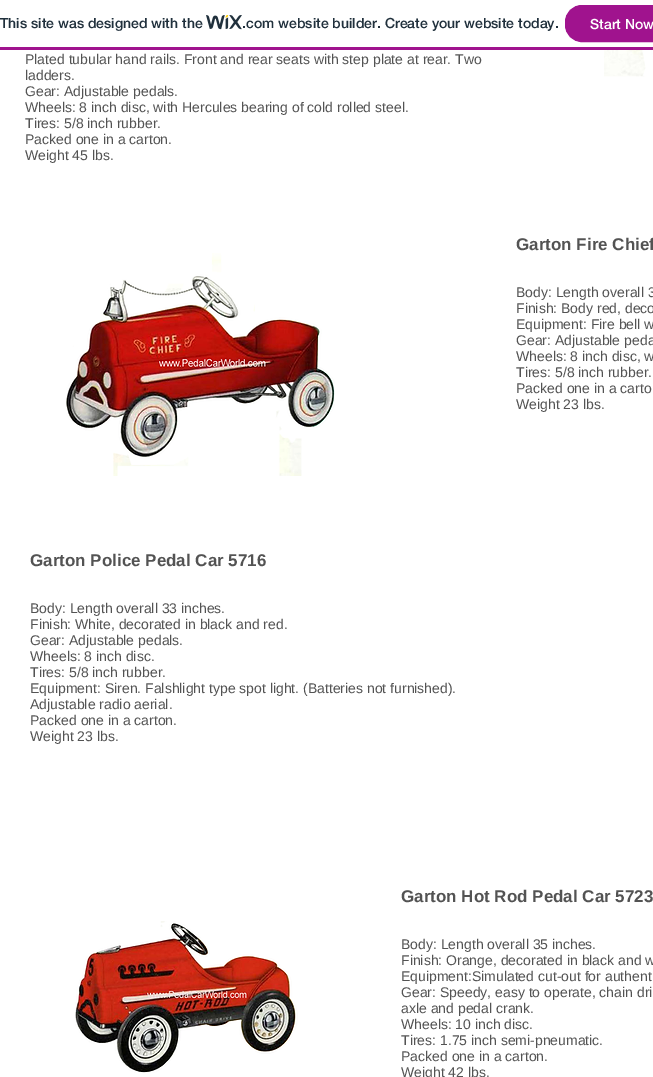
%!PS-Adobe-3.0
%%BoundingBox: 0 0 653 1077
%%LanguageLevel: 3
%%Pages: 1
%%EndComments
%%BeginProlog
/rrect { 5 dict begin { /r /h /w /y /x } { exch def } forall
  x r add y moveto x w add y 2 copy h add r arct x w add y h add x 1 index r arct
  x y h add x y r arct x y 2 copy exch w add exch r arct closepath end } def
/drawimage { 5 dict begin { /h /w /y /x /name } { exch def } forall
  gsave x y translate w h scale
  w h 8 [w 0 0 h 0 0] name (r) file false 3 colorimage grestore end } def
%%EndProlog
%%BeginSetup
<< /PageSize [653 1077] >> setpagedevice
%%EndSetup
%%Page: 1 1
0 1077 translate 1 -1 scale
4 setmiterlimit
1 setgray
0 0 653 1077 rectfill
0.627 0.075 0.557 setrgbcolor
0 47 653 3 rectfill
(images/1.raw) 206 15 36 15 drawimage
565.5 5.5 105 36 16.5 rrect gsave fill grestore
stroke
(images/2.raw) 604 50 49 27 drawimage
(images/3.raw) 66 253 269 223 drawimage
(images/4.raw) 75 921 223 152 drawimage
/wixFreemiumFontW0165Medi-Medium [14 0 0 -14 0 0] selectfont
0.125 0.188 0.235 setrgbcolor
0 28 moveto (This site was designed with the) show
242 28 moveto (.com website builder. Create your website today.) show
1 setgray
590 29 moveto (Start Now) show
/LiberationSans-Regular [14 0 0 -14 0 0] selectfont
0.325 setgray
25 64 moveto (Plated tubular hand rails. Front and rear seats with step plate at rear. Two) show
25 80 moveto (ladders.) show
25 96 moveto (Gear: Adjustable pedals.) show
25 112 moveto (Wheels: 8 inch disc, with Hercules bearing of cold rolled steel.) show
25 128 moveto (Tires: 5/8 inch rubber.) show
25 144 moveto (Packed one in a carton.) show
25 160 moveto (Weight 45 lbs.) show
/LiberationSans-Bold [17 0 0 -17 0 0] selectfont
516 250 moveto (Garton Fire Chief) show
/LiberationSans-Regular [14 0 0 -14 0 0] selectfont
516 297 moveto (Body: Length overall 3) show
516 313 moveto (Finish: Body red, deco) show
516 329 moveto (Equipment: Fire bell w) show
516 345 moveto (Gear: Adjustable peda) show
516 361 moveto (Wheels: 8 inch disc, w) show
516 377 moveto (Tires: 5/8 inch rubber.) show
516 393 moveto (Packed one in a carto) show
516 409 moveto (Weight 23 lbs.) show
/LiberationSans-Bold [17 0 0 -17 0 0] selectfont
30 566 moveto (Garton Police Pedal Car 5716) show
/LiberationSans-Regular [14 0 0 -14 0 0] selectfont
30 613 moveto (Body: Length overall 33 inches.) show
30 629 moveto (Finish: White, decorated in black and red.) show
30 645 moveto (Gear: Adjustable pedals.) show
30 661 moveto (Wheels: 8 inch disc.) show
30 677 moveto (Tires: 5/8 inch rubber.) show
30 693 moveto (Equipment: Siren. Falshlight type spot light. \(Batteries not furnished\).) show
30 709 moveto (Adjustable radio aerial.) show
30 725 moveto (Packed one in a carton.) show
30 741 moveto (Weight 23 lbs.) show
/LiberationSans-Bold [17 0 0 -17 0 0] selectfont
401 902 moveto (Garton Hot Rod Pedal Car 5723) show
/LiberationSans-Regular [14 0 0 -14 0 0] selectfont
401 949 moveto (Body: Length overall 35 inches.) show
401 965 moveto (Finish: Orange, decorated in black and w) show
401 981 moveto (Equipment:Simulated cut-out for authent) show
401 997 moveto (Gear: Speedy, easy to operate, chain dri) show
401 1013 moveto (axle and pedal crank.) show
401 1029 moveto (Wheels: 10 inch disc.) show
401 1045 moveto (Tires: 1.75 inch semi-pneumatic.) show
401 1061 moveto (Packed one in a carton.) show
401 1077 moveto (Weight 42 lbs.) show
showpage
%%EOF
